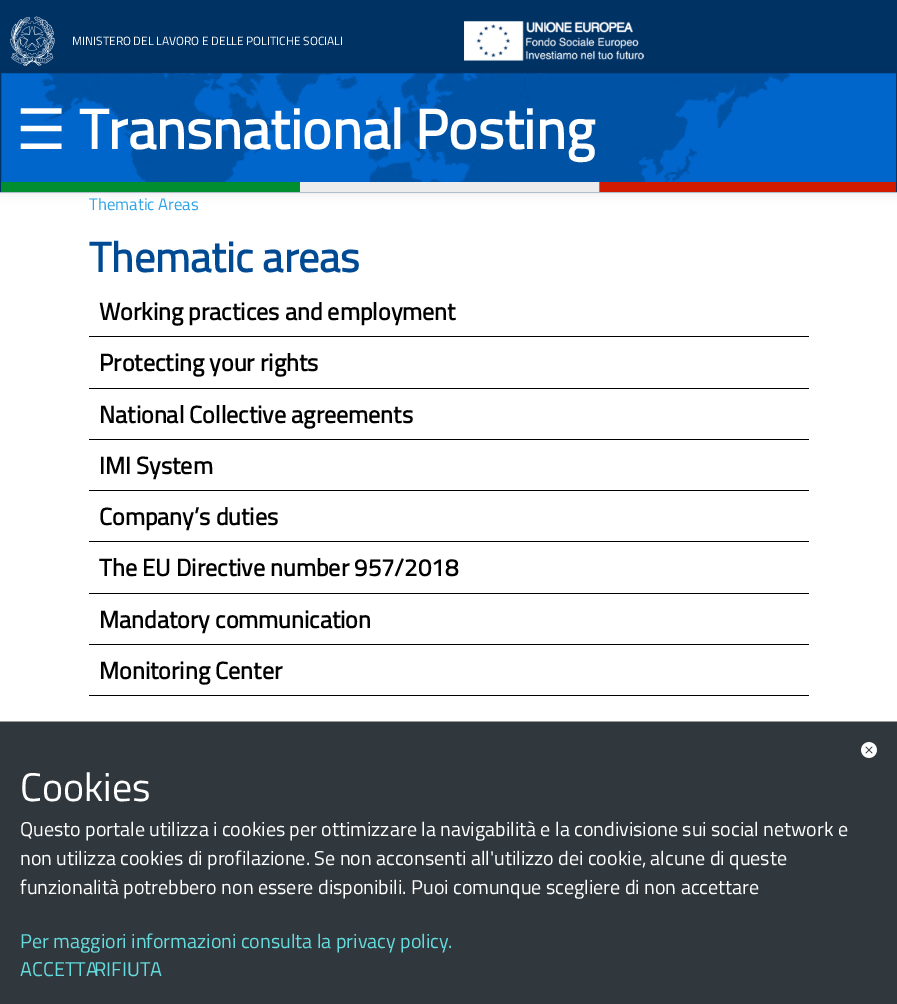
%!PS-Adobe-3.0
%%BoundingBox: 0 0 897 1004
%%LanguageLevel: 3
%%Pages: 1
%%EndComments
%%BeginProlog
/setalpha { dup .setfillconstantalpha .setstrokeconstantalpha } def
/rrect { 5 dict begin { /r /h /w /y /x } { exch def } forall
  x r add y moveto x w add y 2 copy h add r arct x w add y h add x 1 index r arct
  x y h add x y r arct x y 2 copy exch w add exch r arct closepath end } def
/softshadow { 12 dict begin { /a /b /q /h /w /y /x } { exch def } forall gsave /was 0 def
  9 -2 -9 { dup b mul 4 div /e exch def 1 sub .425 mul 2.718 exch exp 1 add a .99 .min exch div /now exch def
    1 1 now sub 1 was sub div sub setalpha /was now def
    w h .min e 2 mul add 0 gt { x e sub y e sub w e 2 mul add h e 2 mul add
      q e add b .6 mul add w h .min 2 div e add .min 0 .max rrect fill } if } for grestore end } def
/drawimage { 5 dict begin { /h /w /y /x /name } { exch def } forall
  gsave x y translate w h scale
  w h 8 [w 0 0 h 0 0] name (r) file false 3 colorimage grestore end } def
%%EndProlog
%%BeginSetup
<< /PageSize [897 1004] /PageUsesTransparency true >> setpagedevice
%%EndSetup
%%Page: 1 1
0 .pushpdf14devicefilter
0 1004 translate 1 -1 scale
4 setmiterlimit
1 setgray
0 0 897 1004 rectfill
0.004 0.196 0.392 setrgbcolor
0 0 897 72 rectfill
(images/1.raw) 10 16 45 50 drawimage
(images/2.raw) 464 21 180 40 drawimage
0 setgray
0 73 897 120 0 5 0.1 softshadow
0 0.4 0.8 setrgbcolor
1 73 895 109 rectfill
(images/3.raw) 41 73 749 109 drawimage
0.004 0.196 0.392 setrgbcolor
0.5 72.5 896 119 rectstroke
(images/4.raw) 1 182 895 10 drawimage
0 setgray
89 336 720 1 rectfill
89 388 720 1 rectfill
89 439 720 1 rectfill
89 490 720 1 rectfill
89 541 720 1 rectfill
89 593 720 1 rectfill
89 644 720 1 rectfill
89 695 720 1 rectfill
0.188 0.216 0.239 setrgbcolor
0 722 897 282 rectfill
0.6 setgray
0 721 897 1 rectfill
(images/5.raw) 861 742 16 16 drawimage
/TitilliumWeb-Regular [12 0 0 -12 0 0] selectfont
1 setgray
72 45 moveto (MINISTERO DEL LAVORO E DELLE POLITICHE SOCIALI) show
/DejaVuSans-Regular [56 0 0 -56 0 0] selectfont
16 149 moveto (☰) show
/TitilliumWeb-Bold [56 0 0 -56 0 0] selectfont
79 149 moveto (Transnational Posting) show
/TitilliumWeb-Regular [16.75 0 0 -16.75 0 0] selectfont
0.184 0.643 0.906 setrgbcolor
89 210 moveto (Thematic Areas) show
/TitilliumWeb-Bold [42 0 0 -42 0 0] selectfont
0 0.29 0.58 setrgbcolor
89 272 moveto (Thematic areas) show
/TitilliumWeb-Bold [24 0 0 -24 0 0] selectfont
0 setgray
99 320 moveto (Working practices and employment) show
99 371 moveto (Protecting your rights) show
99 423 moveto (National Collective agreements) show
99 474 moveto (IMI System) show
99 525 moveto (Company’s duties) show
99 576 moveto (The EU Directive number 957/2018) show
99 628 moveto (Mandatory communication) show
99 679 moveto (Monitoring Center) show
/TitilliumWeb-Regular [40 0 0 -40 0 0] selectfont
1 setgray
20 801 moveto (Cookies) show
/TitilliumWeb-Regular [20 0 0 -20 0 0] selectfont
20 836 moveto (Questo portale utilizza i cookies per ottimizzare la navigabilità e la condivisione sui social network e) show
20 865 moveto (non utilizza cookies di profilazione. Se non acconsenti all'utilizzo dei cookie, alcune di queste) show
20 894 moveto (funzionalità potrebbero non essere disponibili. Puoi comunque scegliere di non accettare) show
0.396 0.859 0.871 setrgbcolor
20 948 moveto (Per maggiori informazioni consulta la privacy policy.) show
20 976 moveto (ACCETTA) show
94 976 moveto (RIFIUTA) show
.poppdf14devicefilter showpage
%%EOF
